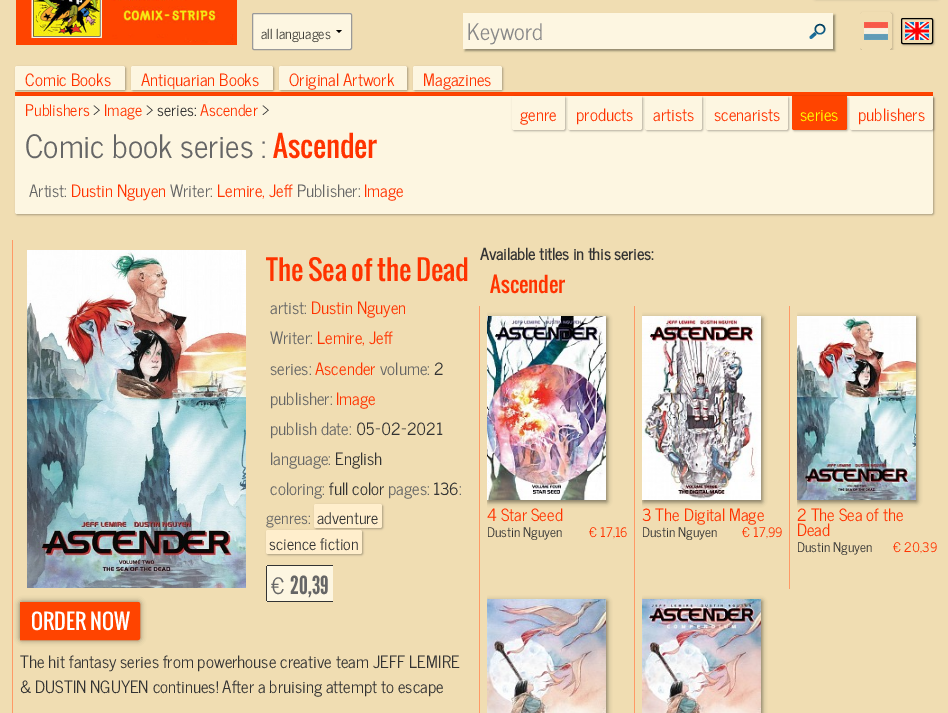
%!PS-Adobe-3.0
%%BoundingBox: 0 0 948 713
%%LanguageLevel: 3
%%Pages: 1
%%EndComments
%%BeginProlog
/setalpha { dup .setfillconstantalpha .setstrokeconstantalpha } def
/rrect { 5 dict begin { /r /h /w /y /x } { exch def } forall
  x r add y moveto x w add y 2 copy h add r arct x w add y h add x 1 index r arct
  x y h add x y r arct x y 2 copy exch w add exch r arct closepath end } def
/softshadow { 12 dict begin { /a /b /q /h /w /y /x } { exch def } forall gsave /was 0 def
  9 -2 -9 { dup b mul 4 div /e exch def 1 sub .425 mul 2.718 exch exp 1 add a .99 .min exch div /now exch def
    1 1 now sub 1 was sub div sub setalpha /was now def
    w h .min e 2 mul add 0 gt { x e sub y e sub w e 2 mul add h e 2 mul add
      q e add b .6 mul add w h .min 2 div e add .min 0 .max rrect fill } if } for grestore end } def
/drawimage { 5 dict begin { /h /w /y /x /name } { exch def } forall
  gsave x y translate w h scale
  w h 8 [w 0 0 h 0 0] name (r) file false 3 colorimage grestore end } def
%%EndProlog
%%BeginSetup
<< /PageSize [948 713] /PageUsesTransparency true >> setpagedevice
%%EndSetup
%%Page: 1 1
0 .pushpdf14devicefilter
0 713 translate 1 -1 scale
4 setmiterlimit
0.941 0.867 0.698 setrgbcolor
0 0 948 713 rectfill
(images/1.raw) 16 0 221 45 drawimage
0 setgray
814 -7 125 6 2 1.5 0.3 softshadow
0.992 0.965 0.882 setrgbcolor
252 13 100 37 2 rrect fill
0 setgray
newpath 342 30 moveto 339 33 lineto 336 30 lineto closepath fill
0.6 setgray
252.5 13.5 99 36 1.5 rrect stroke
0.039 setgray
465 15 370 36 0 1 0.4 softshadow
0.992 0.965 0.882 setrgbcolor
463 13 370 36 rectfill
(images/2.raw) 809 23 17 16 drawimage
gsave
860 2 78 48 rectclip
newpath 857 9 moveto 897 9 lineto 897 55 lineto 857 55 lineto closepath 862 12 moveto 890 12 lineto 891 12 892 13 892 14 curveto 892 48 lineto 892 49 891 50 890 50 curveto 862 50 lineto 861 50 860 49 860 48 curveto 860 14 lineto 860 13 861 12 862 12 curveto closepath eoclip newpath
0.376 0.345 0.278 setrgbcolor
861 13 32 38 2 1 0.3 softshadow
grestore
(images/3.raw) 864 22 24 18 drawimage
gsave
newpath 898 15 moveto 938 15 lineto 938 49 lineto 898 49 lineto closepath 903 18 moveto 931 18 lineto 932 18 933 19 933 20 curveto 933 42 lineto 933 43 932 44 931 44 curveto 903 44 lineto 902 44 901 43 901 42 curveto 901 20 lineto 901 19 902 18 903 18 curveto closepath eoclip newpath
0 setgray
902 19 32 26 2 1 0.3 softshadow
grestore
(images/4.raw) 905 22 24 18 drawimage
0 setgray
901.5 18.5 31 25 1.5 rrect stroke
1 0.267 0 setrgbcolor
15 92 918 4 rectfill
0 setgray
16 67 110 24 2 1 0.3 softshadow
0.992 0.965 0.882 setrgbcolor
newpath 17 66 moveto 123 66 lineto 124 66 125 67 125 68 curveto 125 90 lineto 15 90 lineto 15 68 lineto 15 67 16 66 17 66 curveto closepath fill
0 setgray
132 67 142 24 2 1 0.3 softshadow
0.992 0.965 0.882 setrgbcolor
newpath 133 66 moveto 271 66 lineto 272 66 273 67 273 68 curveto 273 90 lineto 131 90 lineto 131 68 lineto 131 67 132 66 133 66 curveto closepath fill
0 setgray
280 67 128 24 2 1 0.3 softshadow
0.992 0.965 0.882 setrgbcolor
newpath 281 66 moveto 405 66 lineto 406 66 407 67 407 68 curveto 407 90 lineto 279 90 lineto 279 68 lineto 279 67 280 66 281 66 curveto closepath fill
0 setgray
414 67 89 24 2 1 0.3 softshadow
0.992 0.965 0.882 setrgbcolor
newpath 415 66 moveto 500 66 lineto 501 66 502 67 502 68 curveto 502 90 lineto 413 90 lineto 413 68 lineto 413 67 414 66 415 66 curveto closepath fill
0 setgray
16 97 918 118 2 1 0.3 softshadow
0.992 0.965 0.882 setrgbcolor
newpath 15 96 moveto 933 96 lineto 933 212 lineto 933 213 932 214 931 214 curveto 17 214 lineto 16 214 15 213 15 212 curveto closepath fill
0 setgray
513 97 53 34 2 1 0.3 softshadow
0.992 0.965 0.882 setrgbcolor
newpath 512 96 moveto 565 96 lineto 565 128 lineto 565 129 564 130 563 130 curveto 514 130 lineto 513 130 512 129 512 128 curveto closepath fill
0 setgray
569 97 74 34 2 1 0.3 softshadow
0.992 0.965 0.882 setrgbcolor
newpath 568 96 moveto 642 96 lineto 642 128 lineto 642 129 641 130 640 130 curveto 570 130 lineto 569 130 568 129 568 128 curveto closepath fill
0 setgray
646 97 57 34 2 1 0.3 softshadow
0.992 0.965 0.882 setrgbcolor
newpath 645 96 moveto 702 96 lineto 702 128 lineto 702 129 701 130 700 130 curveto 647 130 lineto 646 130 645 129 645 128 curveto closepath fill
0 setgray
707 97 82 34 2 1 0.3 softshadow
0.992 0.965 0.882 setrgbcolor
newpath 706 96 moveto 788 96 lineto 788 128 lineto 788 129 787 130 786 130 curveto 708 130 lineto 707 130 706 129 706 128 curveto closepath fill
0 setgray
793 97 55 34 2 1 0.3 softshadow
1 0.267 0 setrgbcolor
newpath 792 96 moveto 847 96 lineto 847 128 lineto 847 129 846 130 845 130 curveto 794 130 lineto 793 130 792 129 792 128 curveto closepath fill
0 setgray
851 97 83 34 2 1 0.3 softshadow
0.992 0.965 0.882 setrgbcolor
newpath 850 96 moveto 933 96 lineto 933 128 lineto 933 129 932 130 931 130 curveto 852 130 lineto 851 130 850 129 850 128 curveto closepath fill
1 0.6 0.4 setrgbcolor
12 240 1 473 rectfill
(images/5.raw) 27 250 219 338 drawimage
0 setgray
315 505 68 24 2 1 0.3 softshadow
1 0.933 0.8 setrgbcolor
314 504 68 24 2 rrect fill
0 setgray
267 531 96 24 2 1 0.3 softshadow
1 0.933 0.8 setrgbcolor
266 530 96 24 2 rrect fill
0.992 0.965 0.882 setrgbcolor
newpath 268 565 moveto 333 565 lineto 333 602 lineto 268 602 lineto 267 602 266 601 266 600 curveto 266 567 lineto 266 566 267 565 268 565 curveto closepath fill
0.2 setgray
267 565 66 1 rectfill
267 601 66 1 rectfill
266 566 1 35 rectfill
0.039 setgray
20 602 120 38 2 3 0.5 softshadow
1 0.267 0 setrgbcolor
newpath 20.5 602.5 moveto 138 602.5 lineto 139 602.5 139.5 603 139.5 604 curveto 139.5 638 lineto 139.5 639 139 639.5 138 639.5 curveto 20.5 639.5 lineto closepath gsave fill grestore
stroke
1 0.6 0.4 setrgbcolor
479 306 1 407 rectfill
gsave
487 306 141 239 rectclip
0 setgray
488 318 119 184 0 2.5 0.5 softshadow
grestore
(images/6.raw) 487 316 119 184 drawimage
634 306 1 407 rectfill
gsave
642 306 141 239 rectclip
0 setgray
643 318 119 184 0 2.5 0.5 softshadow
grestore
(images/7.raw) 642 316 119 184 drawimage
789 306 1 283 rectfill
gsave
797 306 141 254 rectclip
0 setgray
798 318 119 184 0 2.5 0.5 softshadow
grestore
(images/8.raw) 797 316 119 184 drawimage
gsave
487 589 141 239 rectclip
0 setgray
488 601 119 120 0 2.5 0.5 softshadow
grestore
(images/9.raw) 487 599 119 114 drawimage
gsave
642 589 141 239 rectclip
0 setgray
643 601 119 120 0 2.5 0.5 softshadow
grestore
(images/10.raw) 642 599 119 114 drawimage
/NewsCycle-Medium [14 0 0 -14 0 0] selectfont
0.247 0.243 0.22 setrgbcolor
261 39 moveto (all languages) show
/NewsCycle-Medium [22.5 0 0 -22.5 0 0] selectfont
0.533 setgray
467 40 moveto (Keyword) show
/NewsCycle-Medium [16.8 0 0 -16.8 0 0] selectfont
1 0.2 0 setrgbcolor
25 86 moveto (Comic Books) show
141 86 moveto (Antiquarian Books) show
289 86 moveto (Original Artwork) show
423 86 moveto (Magazines) show
520 121 moveto (genre) show
576 121 moveto (products) show
653 121 moveto (artists) show
714 121 moveto (scenarists) show
1 1 0 setrgbcolor
800 121 moveto (series) show
1 0.2 0 setrgbcolor
858 121 moveto (publishers) show
/NewsCycle-Medium [16 0 0 -16 0 0] selectfont
25 116 moveto (Publishers) show
0.2 setgray
93 116 moveto (>) show
1 0.2 0 setrgbcolor
104 116 moveto (Image) show
0.2 setgray
146 116 moveto (> series:) show
1 0.2 0 setrgbcolor
200 116 moveto (Ascender) show
0.2 setgray
262 116 moveto (>) show
/NewsCycle-Medium [32 0 0 -32 0 0] selectfont
0.4 setgray
25 158 moveto (Comic book series :) show
/Oswald-Regular [29 0 0 -29 0 0] selectfont
1 0.2 0 setrgbcolor
273 158 moveto (Ascender) show
/NewsCycle-Medium [16.8 0 0 -16.8 0 0] selectfont
0.4 setgray
29 197 moveto (Artist:) show
1 0.2 0 setrgbcolor
71 197 moveto (Dustin Nguyen) show
0.4 setgray
170 197 moveto (Writer:) show
1 0.2 0 setrgbcolor
217 197 moveto (Lemire, Jeff) show
0.4 setgray
297 197 moveto (Publisher:) show
1 0.2 0 setrgbcolor
364 197 moveto (Image) show
/NewsCycle-Bold [16 0 0 -16 0 0] selectfont
0.2 setgray
480 260 moveto (Available titles in this series:) show
/Oswald-Regular [27.25 0 0 -27.25 0 0] selectfont
1 0.2 0 setrgbcolor
266 281 moveto (The Sea of the Dead) show
/NewsCycle-Medium [16.8 0 0 -16.8 0 0] selectfont
0.4 setgray
270 314 moveto (artist:) show
1 0.2 0 setrgbcolor
311 314 moveto (Dustin Nguyen) show
0.4 setgray
270 344 moveto (Writer:) show
1 0.2 0 setrgbcolor
317 344 moveto (Lemire, Jeff) show
0.4 setgray
270 375 moveto (series:) show
1 0.2 0 setrgbcolor
315 375 moveto (Ascender) show
0.4 setgray
380 375 moveto (volume:) show
0.2 setgray
434 375 moveto (2) show
0.4 setgray
270 405 moveto (publisher:) show
1 0.2 0 setrgbcolor
336 405 moveto (Image) show
0.4 setgray
270 435 moveto (publish date:) show
0.2 setgray
356 435 moveto (05-02-2021) show
0.4 setgray
270 465 moveto (language:) show
0.2 setgray
335 465 moveto (English) show
0.4 setgray
270 495 moveto (coloring:) show
0.2 setgray
329 495 moveto (full color) show
0.4 setgray
388 495 moveto (pages:) show
0.2 setgray
433 495 moveto (136) show
0.4 setgray
459 495 moveto (:) show
/NewsCycle-Medium [16 0 0 -16 0 0] selectfont
266 524 moveto (genres:) show
0.2 setgray
317 524 moveto (adventure) show
269 550 moveto (science fiction) show
/NewsCycle-Medium [22.5 0 0 -22.5 0 0] selectfont
0.4 setgray
271 594 moveto (€) show
/LeagueGothic-Regular [25 0 0 -25 0 0] selectfont
290 594 moveto (20,39) show
/Oswald-Regular [21 0 0 -21 0 0] selectfont
1 setgray
31 630 moveto (ORDER NOW) show
/NewsCycle-Medium [16.8 0 0 -16.8 0 0] selectfont
0.2 setgray
20 668 moveto (The hit fantasy series from powerhouse creative team JEFF LEMIRE) show
20 693 moveto (& DUSTIN NGUYEN continues! After a bruising attempt to escape) show
/Oswald-Regular [21 0 0 -21 0 0] selectfont
1 0.2 0 setrgbcolor
490 293 moveto (Ascender) show
/NewsCycle-Medium [16.75 0 0 -16.75 0 0] selectfont
487 521 moveto (4 Star Seed) show
/NewsCycle-Medium [13.25 0 0 -13.25 0 0] selectfont
0.2 setgray
487 537 moveto (Dustin Nguyen) show
1 0.2 0 setrgbcolor
589 537 moveto (€ 17,16) show
/NewsCycle-Medium [16.75 0 0 -16.75 0 0] selectfont
642 521 moveto (3 The Digital Mage) show
/NewsCycle-Medium [13.25 0 0 -13.25 0 0] selectfont
0.2 setgray
642 537 moveto (Dustin Nguyen) show
1 0.2 0 setrgbcolor
742 537 moveto (€ 17,99) show
/NewsCycle-Medium [16.75 0 0 -16.75 0 0] selectfont
797 521 moveto (2 The Sea of the) show
797 536 moveto (Dead) show
/NewsCycle-Medium [13.25 0 0 -13.25 0 0] selectfont
0.2 setgray
797 552 moveto (Dustin Nguyen) show
1 0.2 0 setrgbcolor
893 552 moveto (€ 20,39) show
.poppdf14devicefilter showpage
%%EOF
